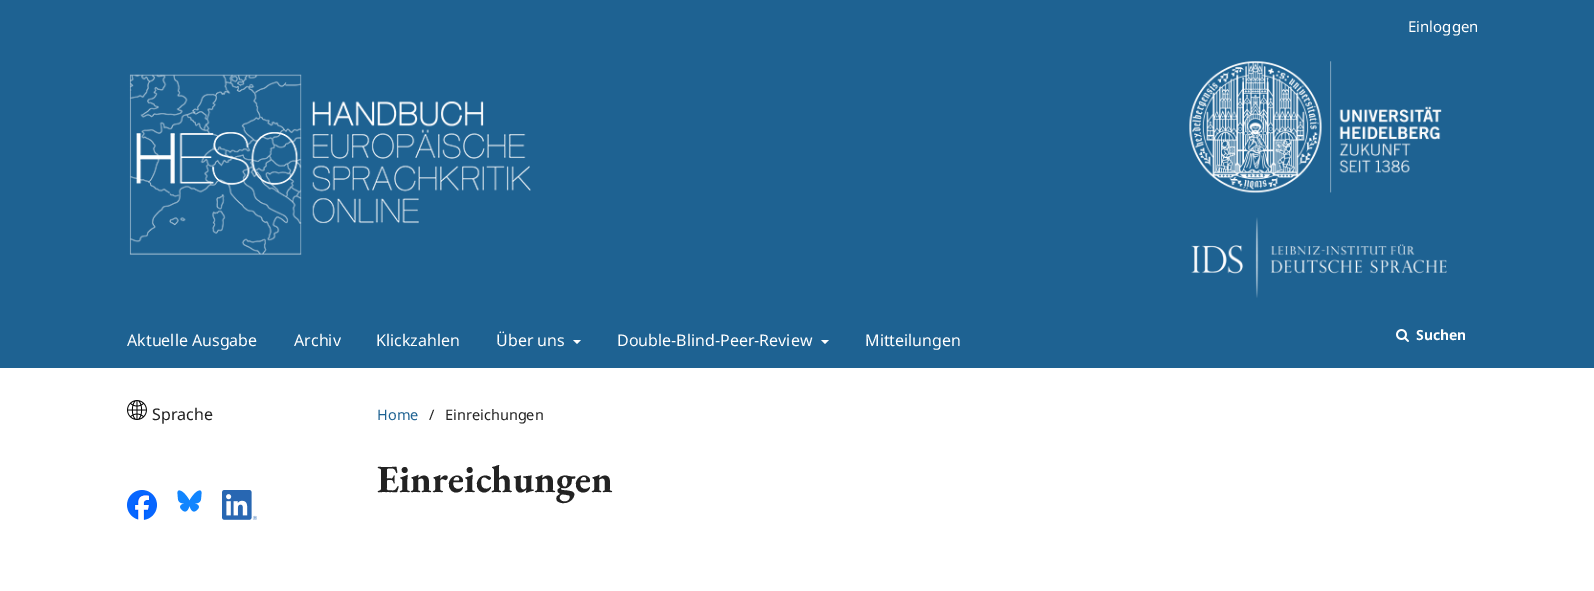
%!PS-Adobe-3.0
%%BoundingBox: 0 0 1594 591
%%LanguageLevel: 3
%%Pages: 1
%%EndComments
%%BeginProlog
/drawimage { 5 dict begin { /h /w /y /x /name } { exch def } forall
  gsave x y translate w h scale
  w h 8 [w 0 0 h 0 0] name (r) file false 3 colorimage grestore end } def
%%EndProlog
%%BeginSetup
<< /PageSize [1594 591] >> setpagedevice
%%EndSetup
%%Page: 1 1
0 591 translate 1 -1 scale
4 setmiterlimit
1 setgray
0 0 1594 591 rectfill
0.118 0.384 0.573 setrgbcolor
0 0 1594 368 rectfill
1 setgray
newpath 573 340 moveto 581 340 lineto 577 344 lineto closepath fill
newpath 821 340 moveto 829 340 lineto 825 344 lineto closepath fill
(images/1.raw) 1396 329 13 13 drawimage
(images/2.raw) 129 61 1318 237 drawimage
(images/3.raw) 127 400 20 20 drawimage
(images/4.raw) 127 490 30 30 drawimage
(images/5.raw) 177 490 25 22 drawimage
(images/6.raw) 222 490 35 30 drawimage
/NotoSans-Regular [15 0 0 -15 0 0] selectfont
1408 32 moveto (Einloggen) show
/NotoSans-Regular [16 0 0 -16 0 0] selectfont
127 346 moveto (Aktuelle Ausgabe) show
294 346 moveto (Archiv) show
376 346 moveto (Klickzahlen) show
496 346 moveto (Über uns) show
617 346 moveto (Double-Blind-Peer-Review) show
865 346 moveto (Mitteilungen) show
/NotoSans-Bold [14 0 0 -14 0 0] selectfont
1416 340 moveto (Suchen) show
/NotoSans-Regular [16 0 0 -16 0 0] selectfont
0.133 setgray
152 420 moveto (Sprache) show
/NotoSans-Regular [14.5 0 0 -14.5 0 0] selectfont
0.118 0.384 0.573 setrgbcolor
377 420 moveto (Home) show
0.133 setgray
429 420 moveto (/) show
445 420 moveto (Einreichungen) show
/EBGaramond-Bold [38.5 0 0 -38.5 0 0] selectfont
377 492 moveto (Einreichungen) show
showpage
%%EOF
